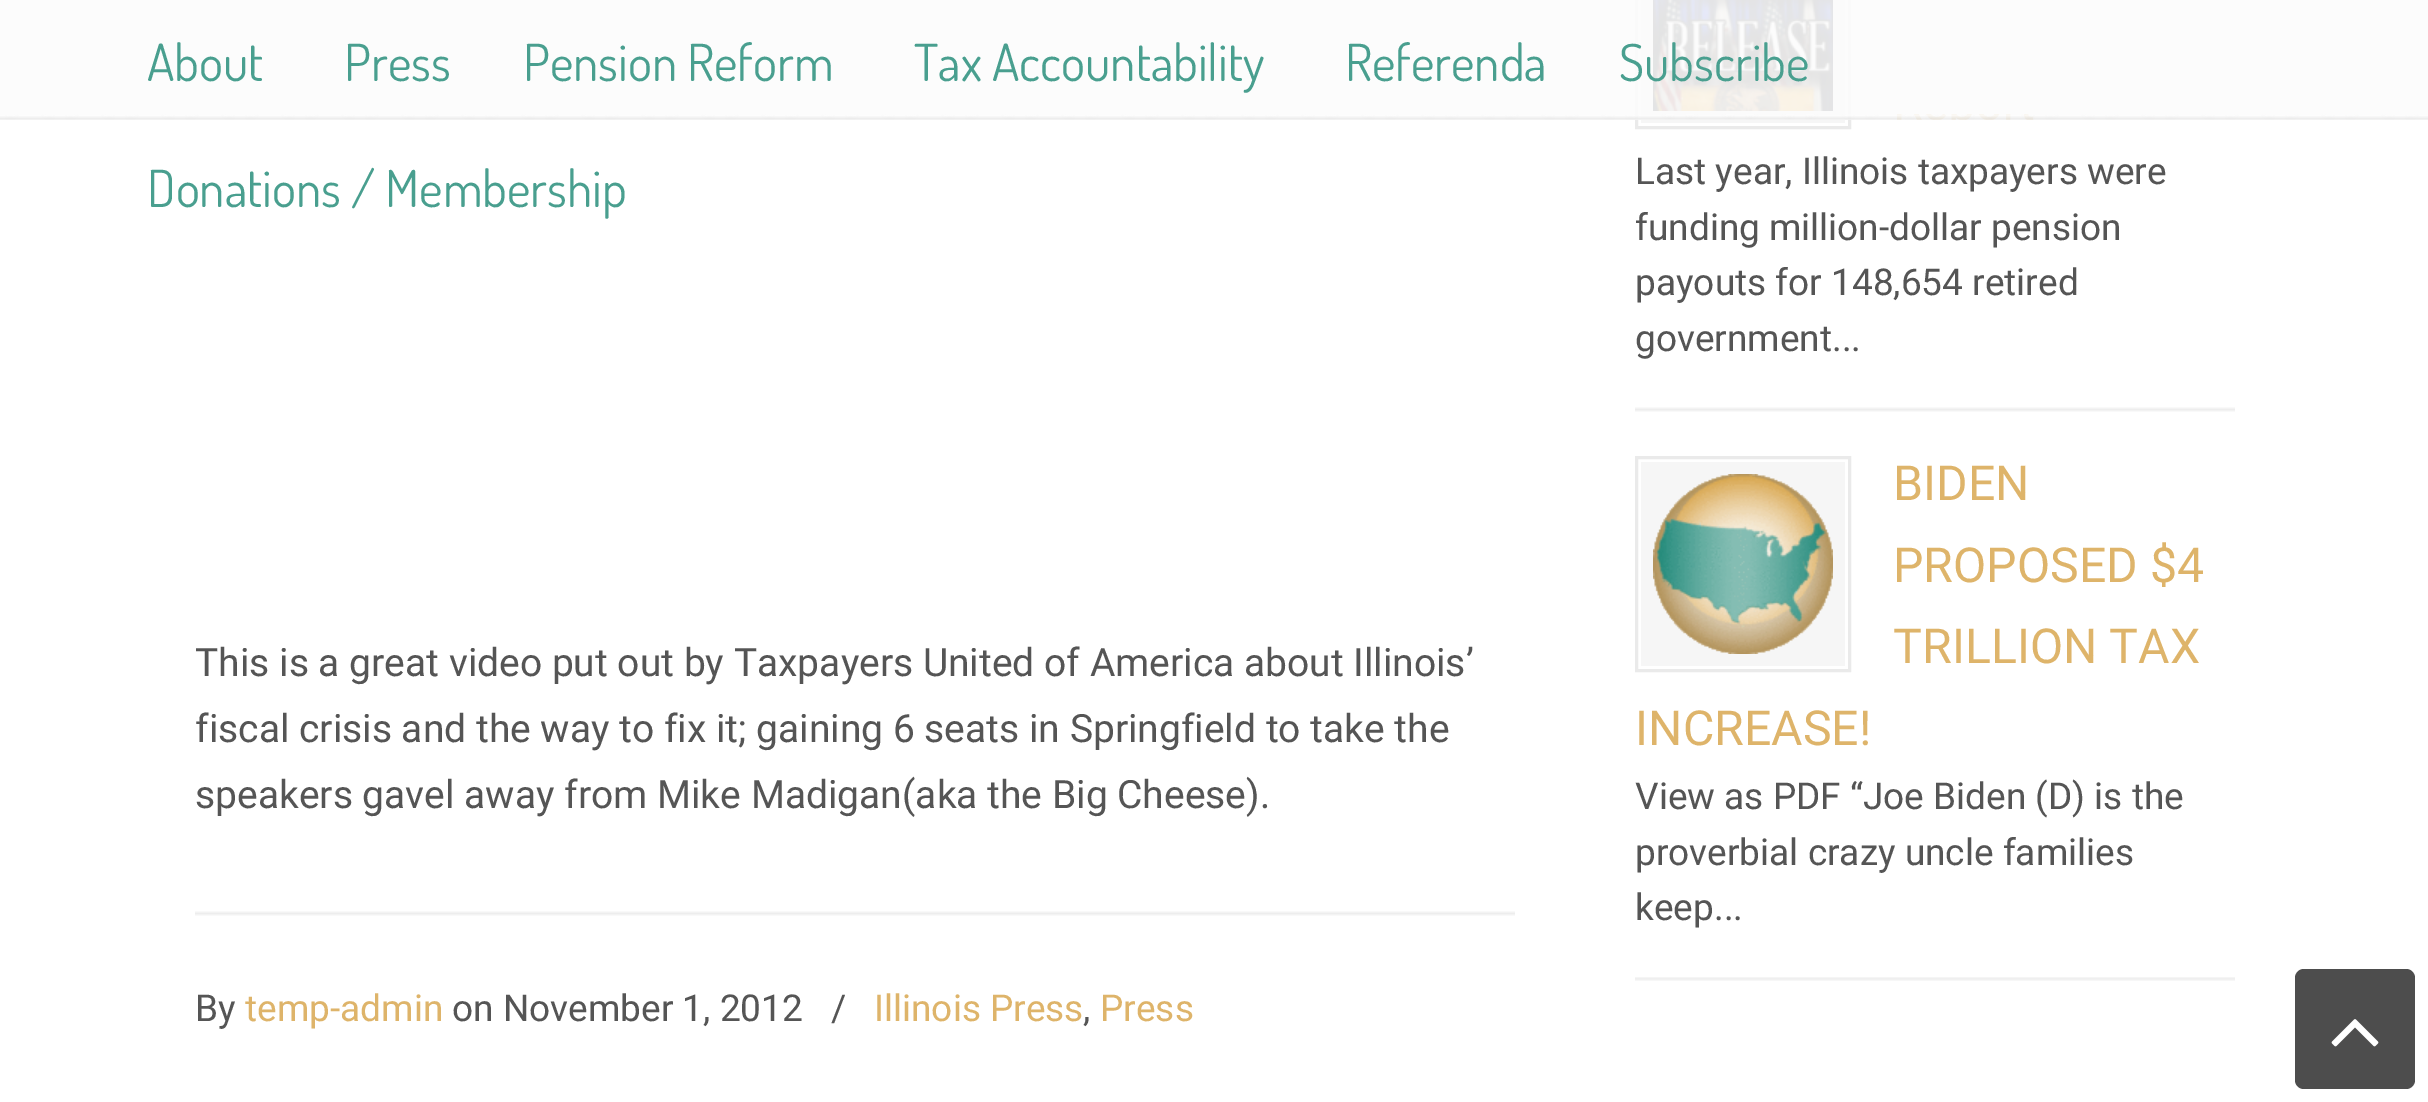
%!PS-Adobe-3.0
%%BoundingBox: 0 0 2428 1102
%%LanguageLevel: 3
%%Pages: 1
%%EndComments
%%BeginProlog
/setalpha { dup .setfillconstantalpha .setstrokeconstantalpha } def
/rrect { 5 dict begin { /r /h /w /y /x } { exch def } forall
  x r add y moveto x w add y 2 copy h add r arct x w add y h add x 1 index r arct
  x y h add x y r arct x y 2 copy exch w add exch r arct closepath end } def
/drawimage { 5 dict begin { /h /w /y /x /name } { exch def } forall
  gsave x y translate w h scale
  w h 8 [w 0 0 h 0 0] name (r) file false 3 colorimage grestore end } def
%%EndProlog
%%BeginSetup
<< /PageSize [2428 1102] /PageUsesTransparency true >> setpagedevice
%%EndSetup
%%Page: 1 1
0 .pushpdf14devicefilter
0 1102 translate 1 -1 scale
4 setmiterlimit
1 setgray
0 0 2428 1102 rectfill
0.965 setgray
1641 0 204 123 rectfill
0.918 setgray
3 setlinewidth
1636.5 -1.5 213 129 rectstroke
(images/4.raw) 1653 0 180 111 drawimage
0.9 setalpha
0.988 setgray
0 0 2428 120 rectfill
1 setalpha
(images/1.raw) 0 114 2428 6 drawimage
(images/2.raw) 195 911 1320 5 drawimage
(images/3.raw) 1635 407 600 5 drawimage
(images/5.raw) 1635 977 600 4 drawimage
0.965 setgray
1641 462 204 204 rectfill
0.918 setgray
1636.5 457.5 213 213 rectstroke
(images/6.raw) 1653 474 180 180 drawimage
0.302 setgray
2295 969 120 120 9 rrect fill
(images/7.raw) 2331 1019 48 28 drawimage
/Dosis-Regular [51 0 0 -51 0 0] selectfont
0.286 0.624 0.561 setrgbcolor
147 81 moveto (About) show
344 81 moveto (Press) show
523 81 moveto (Pension Reform) show
914 81 moveto (Tax Accountability) show
1345 81 moveto (Referenda) show
1619 81 moveto (Subscribe) show
147 207 moveto (Donations / Membership) show
/Roboto-Regular [39 0 0 -39 0 0] selectfont
0.333 setgray
195 676 moveto (This is a great video put out by Taxpayers United of America about Illinois’) show
195 742 moveto (fiscal crisis and the way to fix it; gaining 6 seats in Springfield to take the) show
195 808 moveto (speakers gavel away from Mike Madigan\(aka the Big Cheese\).) show
/Roboto-Regular [37 0 0 -37 0 0] selectfont
195 1021 moveto (By) show
0.871 0.706 0.416 setrgbcolor
245 1021 moveto (temp-admin) show
0.333 setgray
452 1021 moveto (on November 1, 2012) show
831 1021 moveto (/) show
0.871 0.706 0.416 setrgbcolor
874 1021 moveto (Illinois Press) show
0.333 setgray
1083 1021 moveto (,) show
0.871 0.706 0.416 setrgbcolor
1100 1021 moveto (Press) show
0.333 setgray
1635 184 moveto (Last year, Illinois taxpayers were) show
1635 240 moveto (funding million-dollar pension) show
1635 295 moveto (payouts for 148,654 retired) show
1635 351 moveto (government...) show
/Roboto-Regular [48.25 0 0 -48.25 0 0] selectfont
0.871 0.706 0.416 setrgbcolor
1893 500 moveto (BIDEN) show
1893 582 moveto (PROPOSED $4) show
1893 663 moveto (TRILLION TAX) show
1635 745 moveto (INCREASE!) show
/Roboto-Regular [37 0 0 -37 0 0] selectfont
0.333 setgray
1635 809 moveto (View as PDF “Joe Biden \(D\) is the) show
1635 865 moveto (proverbial crazy uncle families) show
1635 920 moveto (keep...) show
.poppdf14devicefilter showpage
%%EOF
